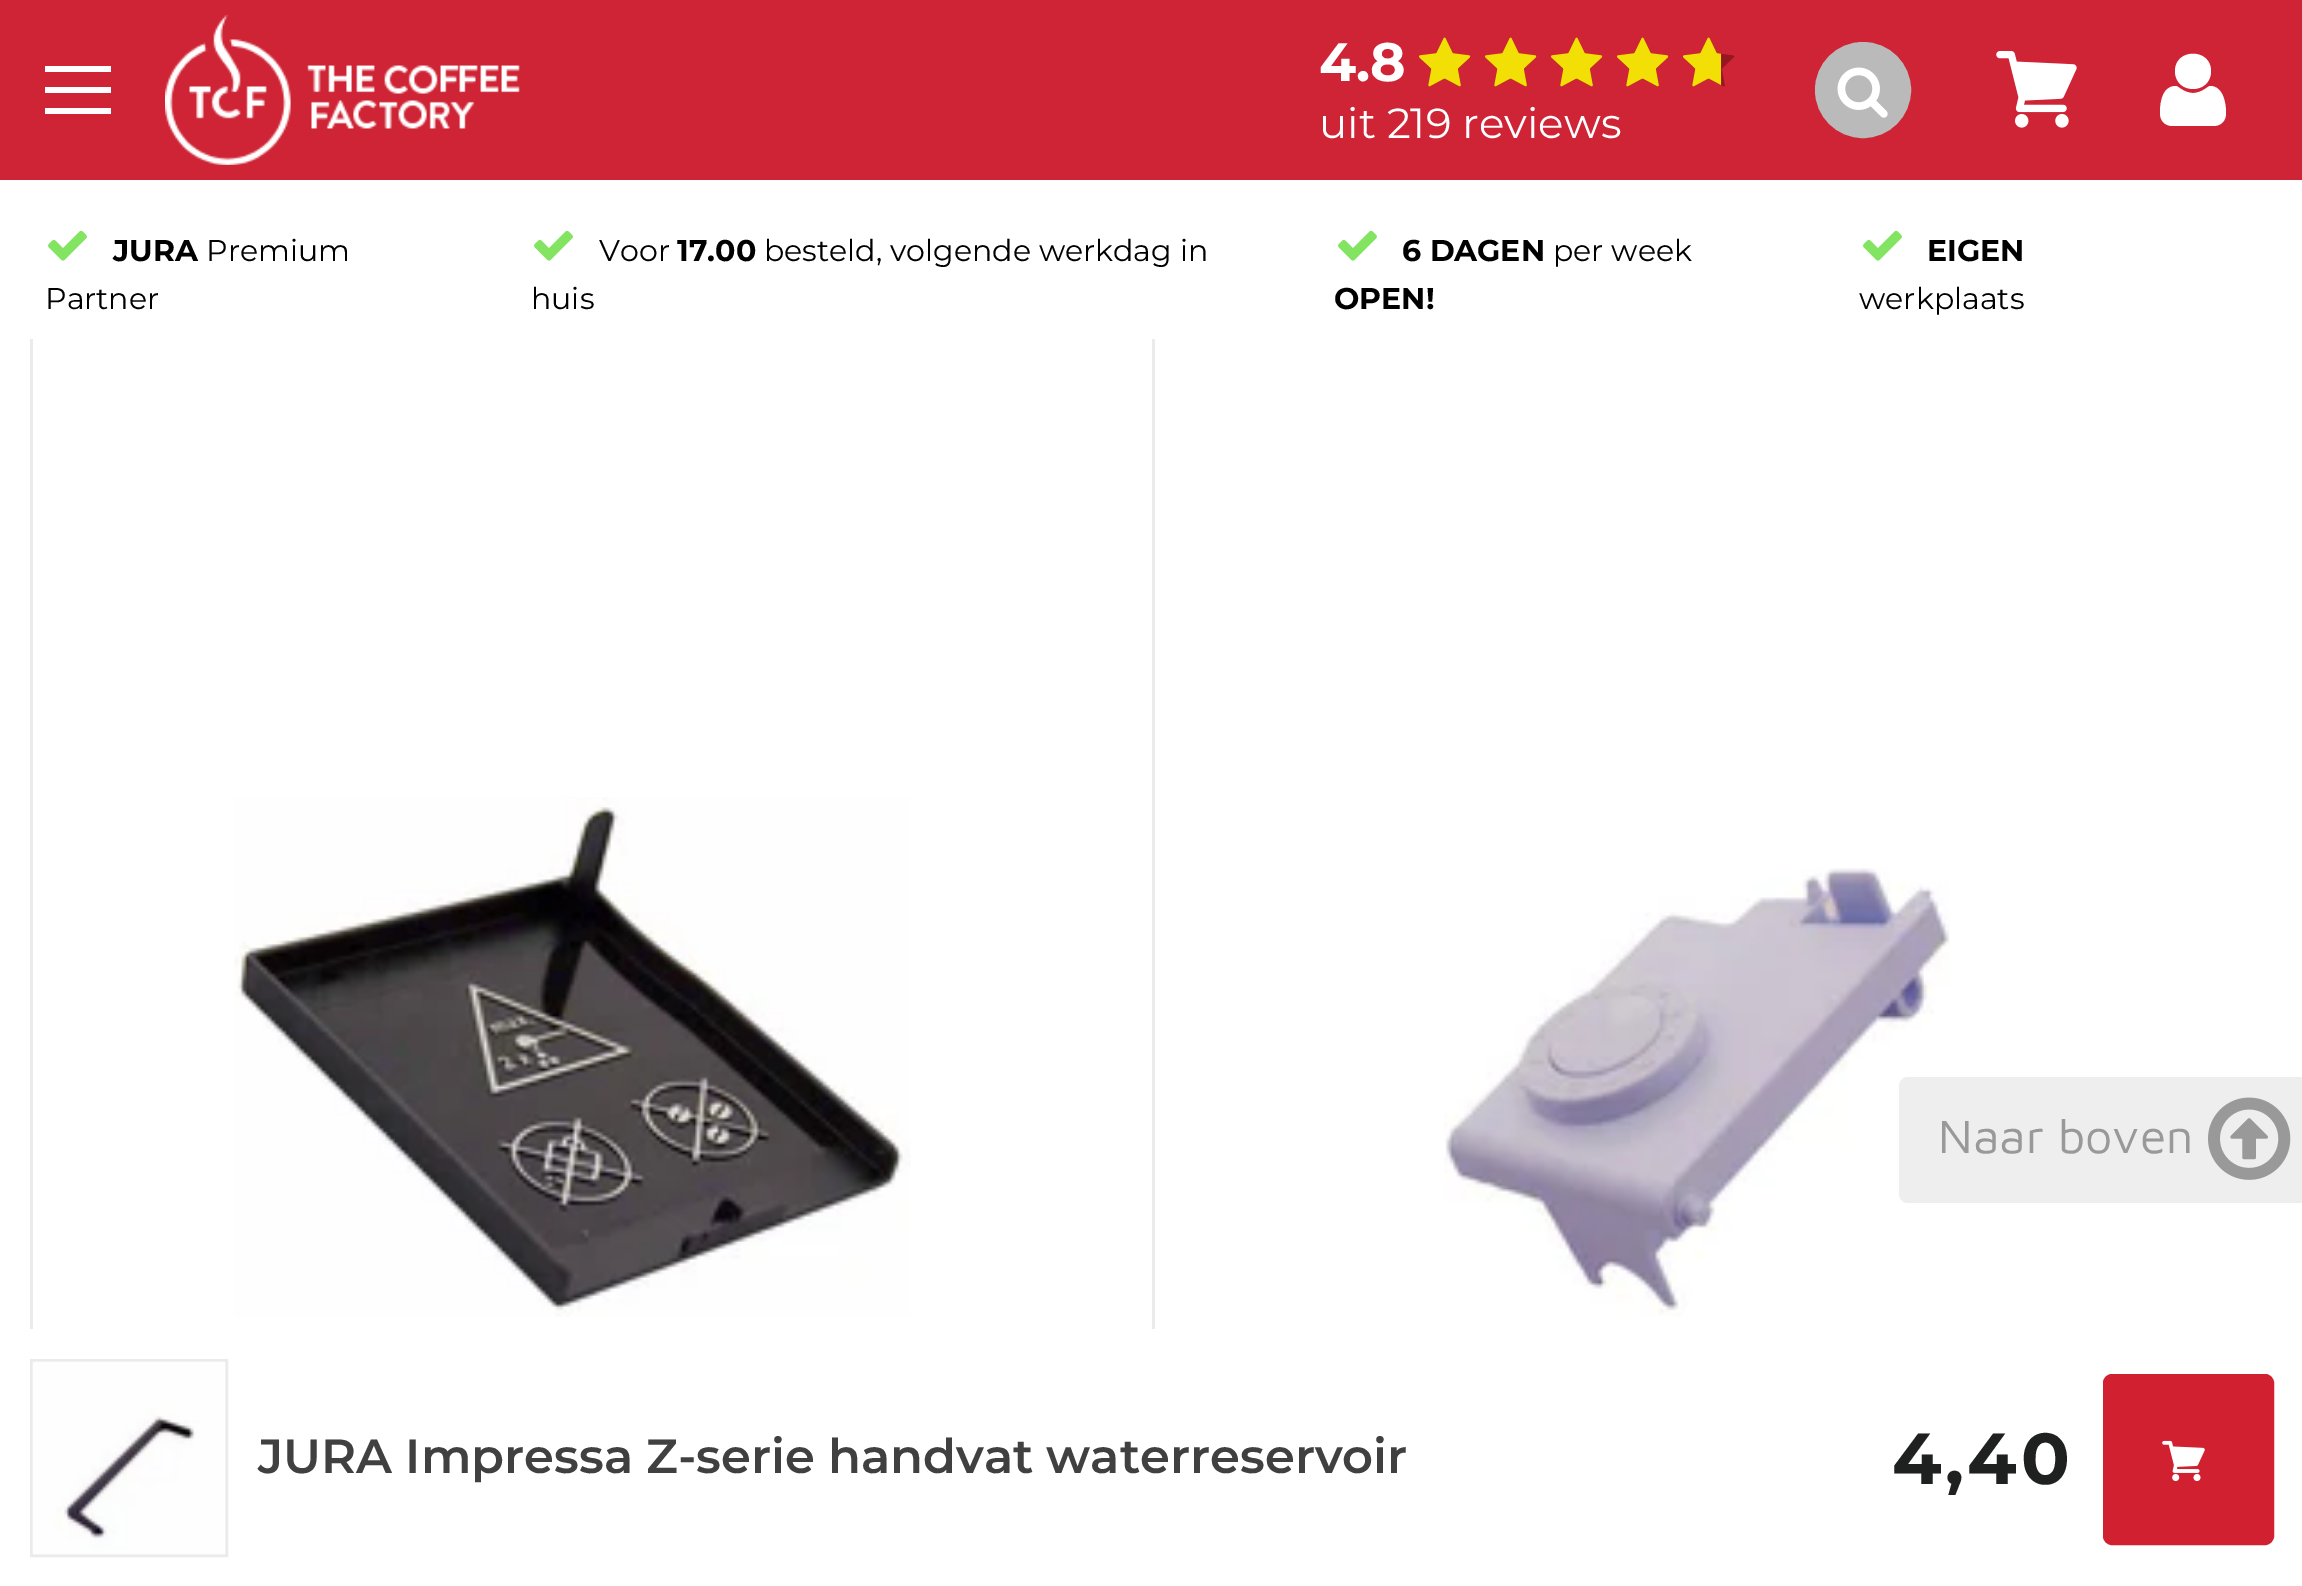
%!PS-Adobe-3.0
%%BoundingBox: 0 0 2302 1586
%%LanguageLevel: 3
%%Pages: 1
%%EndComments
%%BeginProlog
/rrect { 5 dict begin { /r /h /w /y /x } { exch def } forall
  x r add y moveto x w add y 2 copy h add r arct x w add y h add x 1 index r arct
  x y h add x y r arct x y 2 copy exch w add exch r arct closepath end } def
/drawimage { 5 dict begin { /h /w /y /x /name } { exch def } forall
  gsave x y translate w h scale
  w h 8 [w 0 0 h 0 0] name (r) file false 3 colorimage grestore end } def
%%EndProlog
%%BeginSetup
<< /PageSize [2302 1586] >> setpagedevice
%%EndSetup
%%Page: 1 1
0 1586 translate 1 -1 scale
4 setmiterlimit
1 setgray
0 0 2302 1586 rectfill
0.812 0.141 0.208 setrgbcolor
0 0 2302 180 rectfill
1 setgray
45 66 66 6 rectfill
45 87 66 6 rectfill
45 108 66 6 rectfill
(images/1.raw) 165 15 355 150 drawimage
(images/3.raw) 1419 37 316 50 drawimage
(images/2.raw) 1418 37 304 50 drawimage
0.729 setgray
newpath 1863 90 46.5 0 360 arc closepath gsave fill grestore
3 setlinewidth
stroke
(images/4.raw) 1837 67 51 51 drawimage
(images/5.raw) 1996 51 81 77 drawimage
1 setgray
newpath 2175 71 moveto 2175 48 2211 48 2211 71 curveto 2211 95 2175 95 2175 71 curveto closepath 2213 126 moveto 2221 126 2226 121 2226 113 curveto 2226 103 2223 86 2210 86 curveto 2208 86 2202 93 2193 93 curveto 2184 93 2178 86 2176 86 curveto 2162 86 2160 103 2160 113 curveto 2160 121 2165 126 2173 126 curveto closepath eofill
0.922 setgray
30 336 3 993 rectfill
1152 336 3 993 rectfill
1 setgray
30 336 1125 3 rectfill
(images/6.raw) 48 230 39 31 drawimage
(images/6.raw) 534 230 39 31 drawimage
(images/6.raw) 1338 230 39 31 drawimage
(images/6.raw) 1863 230 39 31 drawimage
(images/9.raw) 1444 868 506 449 drawimage
0.933 setgray
newpath 1908 1077 moveto 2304 1077 lineto 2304 1203 lineto 1908 1203 lineto 1903 1203 1899 1199 1899 1194 curveto 1899 1086 lineto 1899 1081 1903 1077 1908 1077 curveto closepath fill
(images/7.raw) 2208 1097 83 83 drawimage
(images/8.raw) 234 797 677 520 drawimage
0.922 setgray
31.5 1360.5 195 195 rectstroke
(images/10.raw) 32 1361 194 194 drawimage
0.82 0.129 0.192 setrgbcolor
2104.5 1375.5 168 168 7.5 rrect gsave fill grestore
stroke
(images/11.raw) 2162 1440 43 42 drawimage
/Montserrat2-Bold [54 0 0 -54 0 0] selectfont
1 setgray
1319 81 moveto (4.8) show
/Montserrat-Regular [42 0 0 -42 0 0] selectfont
1319 138 moveto (uit 219 reviews) show
/Montserrat-Bold [30 0 0 -30 0 0] selectfont
0 setgray
113 261 moveto (JURA) show
/Montserrat-Regular [30 0 0 -30 0 0] selectfont
206 261 moveto (Premium) show
45 309 moveto (Partner) show
599 261 moveto (Voor) show
/Montserrat-Bold [30 0 0 -30 0 0] selectfont
677 261 moveto (17.00) show
/Montserrat-Regular [30 0 0 -30 0 0] selectfont
764 261 moveto (besteld, volgende werkdag in) show
531 309 moveto (huis) show
/Montserrat-Bold [30 0 0 -30 0 0] selectfont
1402 261 moveto (6 DAGEN) show
/Montserrat-Regular [30 0 0 -30 0 0] selectfont
1553 261 moveto (per week) show
/Montserrat-Bold [30 0 0 -30 0 0] selectfont
1334 309 moveto (OPEN!) show
1927 261 moveto (EIGEN) show
/Montserrat-Regular [30 0 0 -30 0 0] selectfont
1859 309 moveto (werkplaats) show
/MavenPro-Regular [48 0 0 -48 0 0] selectfont
0.6 setgray
1938 1153 moveto (Naar boven) show
/Montserrat-SemiBold [48 0 0 -48 0 0] selectfont
0.251 setgray
258 1473 moveto (JURA Impressa Z-serie handvat waterreservoir) show
/Montserrat-Bold [72 0 0 -72 0 0] selectfont
0.122 0.125 0.125 setrgbcolor
1892 1484 moveto 3.5 0 (4,40) ashow
showpage
%%EOF
